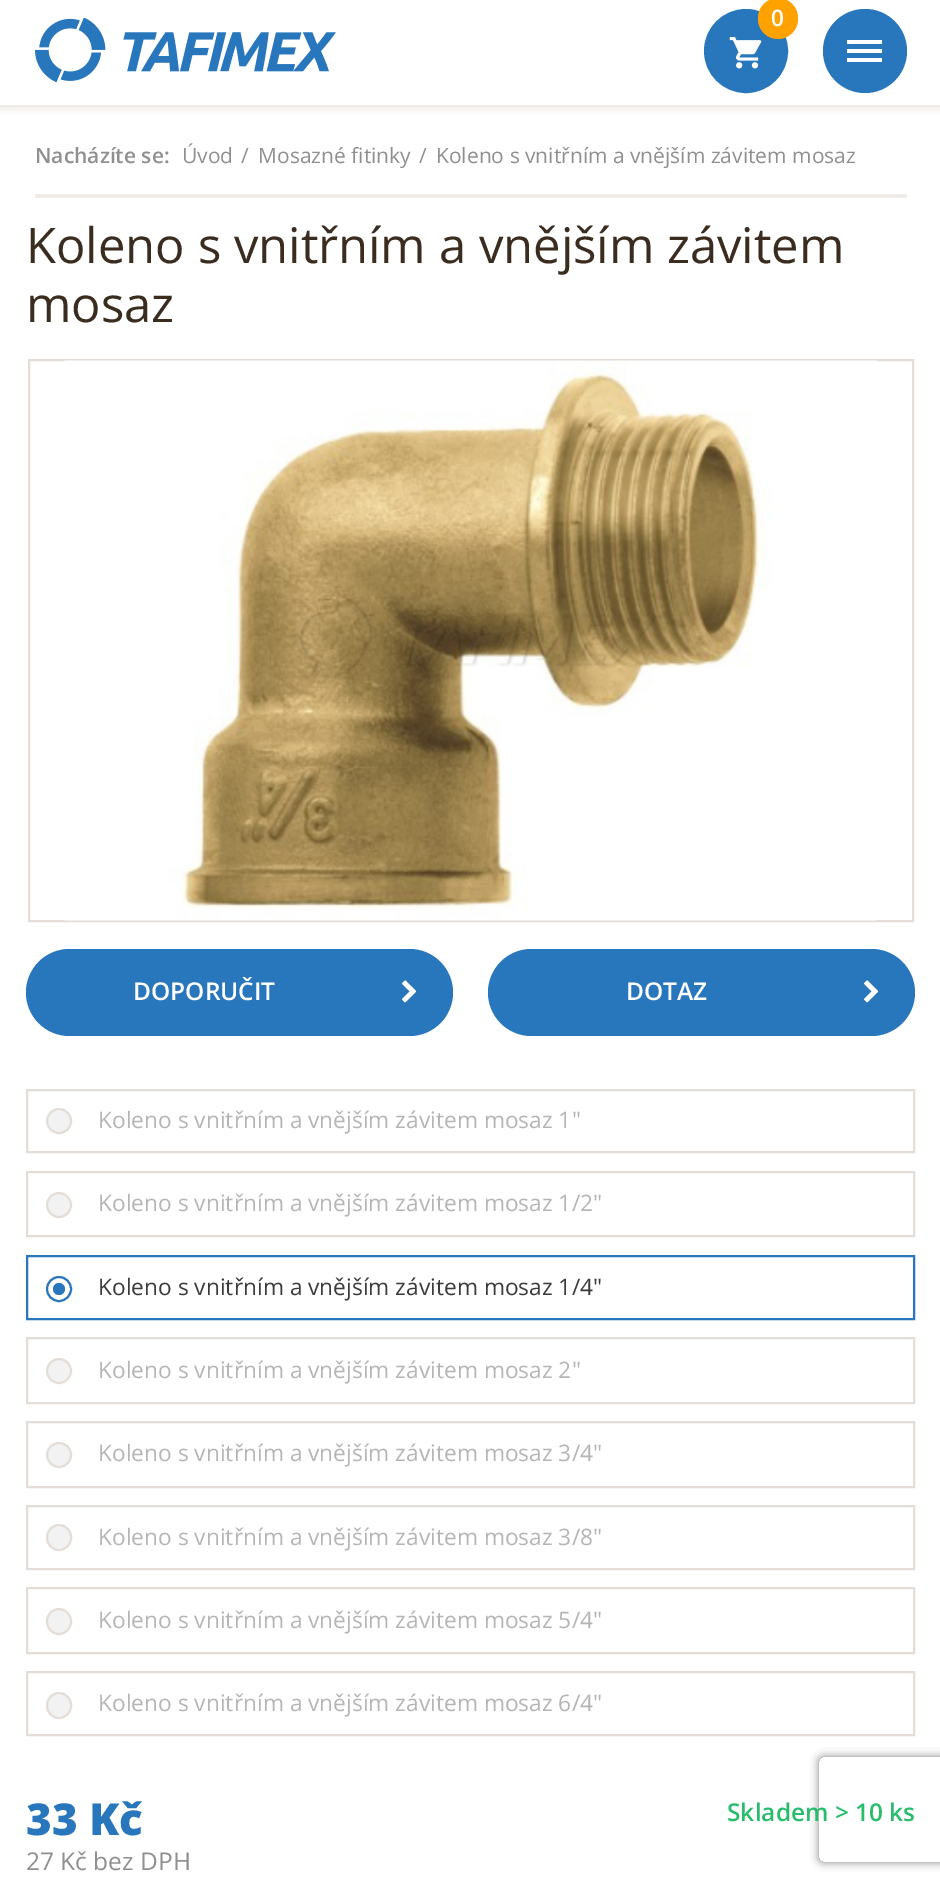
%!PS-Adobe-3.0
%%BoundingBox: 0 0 940 1885
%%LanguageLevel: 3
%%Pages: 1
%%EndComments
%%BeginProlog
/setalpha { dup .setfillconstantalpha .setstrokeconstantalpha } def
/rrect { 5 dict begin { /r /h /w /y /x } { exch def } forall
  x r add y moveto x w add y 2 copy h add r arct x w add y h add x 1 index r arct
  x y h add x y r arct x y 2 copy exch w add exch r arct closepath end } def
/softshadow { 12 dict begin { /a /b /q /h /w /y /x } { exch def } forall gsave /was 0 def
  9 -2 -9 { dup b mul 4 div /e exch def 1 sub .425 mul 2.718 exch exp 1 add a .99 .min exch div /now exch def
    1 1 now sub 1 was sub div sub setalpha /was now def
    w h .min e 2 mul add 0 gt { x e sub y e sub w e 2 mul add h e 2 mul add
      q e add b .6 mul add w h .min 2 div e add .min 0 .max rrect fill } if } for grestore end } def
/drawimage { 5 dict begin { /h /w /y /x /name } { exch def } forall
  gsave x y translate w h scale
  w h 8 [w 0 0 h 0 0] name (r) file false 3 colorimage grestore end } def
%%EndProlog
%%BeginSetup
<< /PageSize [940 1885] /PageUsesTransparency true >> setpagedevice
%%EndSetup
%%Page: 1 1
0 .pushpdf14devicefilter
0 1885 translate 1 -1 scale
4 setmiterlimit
1 setgray
0 0 940 1885 rectfill
0.933 0.914 0.898 setrgbcolor
0 2 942 107 0 3.5 1 softshadow
1 setgray
0 0 940 105 rectfill
0.937 0.922 0.91 setrgbcolor
0 105 940 2 rectfill
(images/1.raw) 35 18 301 65 drawimage
0.157 0.463 0.737 setrgbcolor
newpath 746 51 40 0 360 arc closepath gsave fill grestore
4 setlinewidth
stroke
(images/2.raw) 729 37 33 32 drawimage
1 0.635 0 setrgbcolor
758 -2 40 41 20 rrect fill
0.157 0.463 0.737 setrgbcolor
newpath 865 51 42 0 360 arc closepath fill
1 setgray
847 49 35 4 rectfill
847 40 35 4 rectfill
847 58 35 4 rectfill
0.941 0.925 0.914 setrgbcolor
35 194 872 4 rectfill
0.894 0.867 0.843 setrgbcolor
2 setlinewidth
29 360 884 561 rectstroke
(images/3.raw) 64 360 813 561 drawimage
0.157 0.463 0.737 setrgbcolor
26 949 427 87 43.5 rrect fill
(images/4.raw) 402 980 15 23 drawimage
488 949 427 87 43.5 rrect fill
(images/4.raw) 864 980 15 23 drawimage
0.894 0.867 0.843 setrgbcolor
27 1090 887 62 rectstroke
0.949 setgray
newpath 59 1121 12 0 360 arc closepath gsave fill grestore
0.894 0.867 0.843 setrgbcolor
stroke
27 1172 887 64 rectstroke
0.949 setgray
newpath 59 1205 12 0 360 arc closepath gsave fill grestore
0.894 0.867 0.843 setrgbcolor
stroke
0.157 0.463 0.737 setrgbcolor
newpath 59 1289 12 0 360 arc closepath stroke
newpath 59 1289 6 0 360 arc closepath fill
27 1256 887 63 rectstroke
0.894 0.867 0.843 setrgbcolor
27 1338 887 65 rectstroke
0.949 setgray
newpath 59 1371 12 0 360 arc closepath gsave fill grestore
0.894 0.867 0.843 setrgbcolor
stroke
27 1422 887 65 rectstroke
0.949 setgray
newpath 59 1455 12 0 360 arc closepath gsave fill grestore
0.894 0.867 0.843 setrgbcolor
stroke
27 1506 887 63 rectstroke
0.949 setgray
47 1525 24 25 12 rrect gsave fill grestore
0.894 0.867 0.843 setrgbcolor
stroke
27 1588 887 65 rectstroke
0.949 setgray
47 1609 24 25 12 rrect gsave fill grestore
0.894 0.867 0.843 setrgbcolor
stroke
27 1672 887 63 rectstroke
0.949 setgray
47 1693 24 25 12 rrect gsave fill grestore
0.894 0.867 0.843 setrgbcolor
stroke
gsave
newpath 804 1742 moveto 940 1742 lineto 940 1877 lineto 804 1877 lineto closepath 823 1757 moveto 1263 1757 lineto 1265 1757 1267 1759 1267 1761 curveto 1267 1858 lineto 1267 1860 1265 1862 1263 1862 curveto 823 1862 lineto 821 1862 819 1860 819 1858 curveto 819 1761 lineto 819 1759 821 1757 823 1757 curveto closepath eoclip newpath
0.502 setgray
819 1757 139 105 4 4.5 1 softshadow
grestore
/OpenSans-SemiBold [22.75 0 0 -22.75 0 0] selectfont
1 setgray
771 26 moveto (0) show
/OpenSans-SemiBold [21 0 0 -21 0 0] selectfont
0.561 setgray
35 163 moveto (Nacházíte se:) show
/OpenSans-Regular [21 0 0 -21 0 0] selectfont
182 163 moveto (Úvod) show
241 163 moveto (/) show
258 163 moveto (Mosazné fitinky) show
419 163 moveto (/) show
436 163 moveto (Koleno s vnitřním a vnějším závitem mosaz) show
/OpenSans-Regular [49 0 0 -49 0 0] selectfont
0.227 0.176 0.122 setrgbcolor
26 263 moveto (Koleno s vnitřním a vnějším závitem) show
26 322 moveto (mosaz) show
/OpenSans-SemiBold [24.5 0 0 -24.5 0 0] selectfont
1 setgray
133 1000 moveto (DOPORUČIT) show
626 1000 moveto (DOTAZ) show
/OpenSans-Regular [22.75 0 0 -22.75 0 0] selectfont
0.71 setgray
98 1128 moveto (Koleno s vnitřním a vnějším závitem mosaz 1") show
98 1211 moveto (Koleno s vnitřním a vnějším závitem mosaz 1/2") show
0.231 setgray
98 1295 moveto (Koleno s vnitřním a vnějším závitem mosaz 1/4") show
0.71 setgray
98 1378 moveto (Koleno s vnitřním a vnějším závitem mosaz 2") show
98 1461 moveto (Koleno s vnitřním a vnějším závitem mosaz 3/4") show
98 1545 moveto (Koleno s vnitřním a vnějším závitem mosaz 3/8") show
98 1628 moveto (Koleno s vnitřním a vnějším závitem mosaz 5/4") show
98 1711 moveto (Koleno s vnitřním a vnějším závitem mosaz 6/4") show
/OpenSans-ExtraBold [44 0 0 -44 0 0] selectfont
0.157 0.463 0.737 setrgbcolor
26 1835 moveto (33 Kč) show
/OpenSans-Regular [24.5 0 0 -24.5 0 0] selectfont
0.561 setgray
26 1870 moveto (27 Kč bez DPH) show
/OpenSans-SemiBold [24.5 0 0 -24.5 0 0] selectfont
0.157 0.741 0.427 setrgbcolor
727 1821 moveto (Skladem > 10 ks) show
.poppdf14devicefilter showpage
%%EOF
